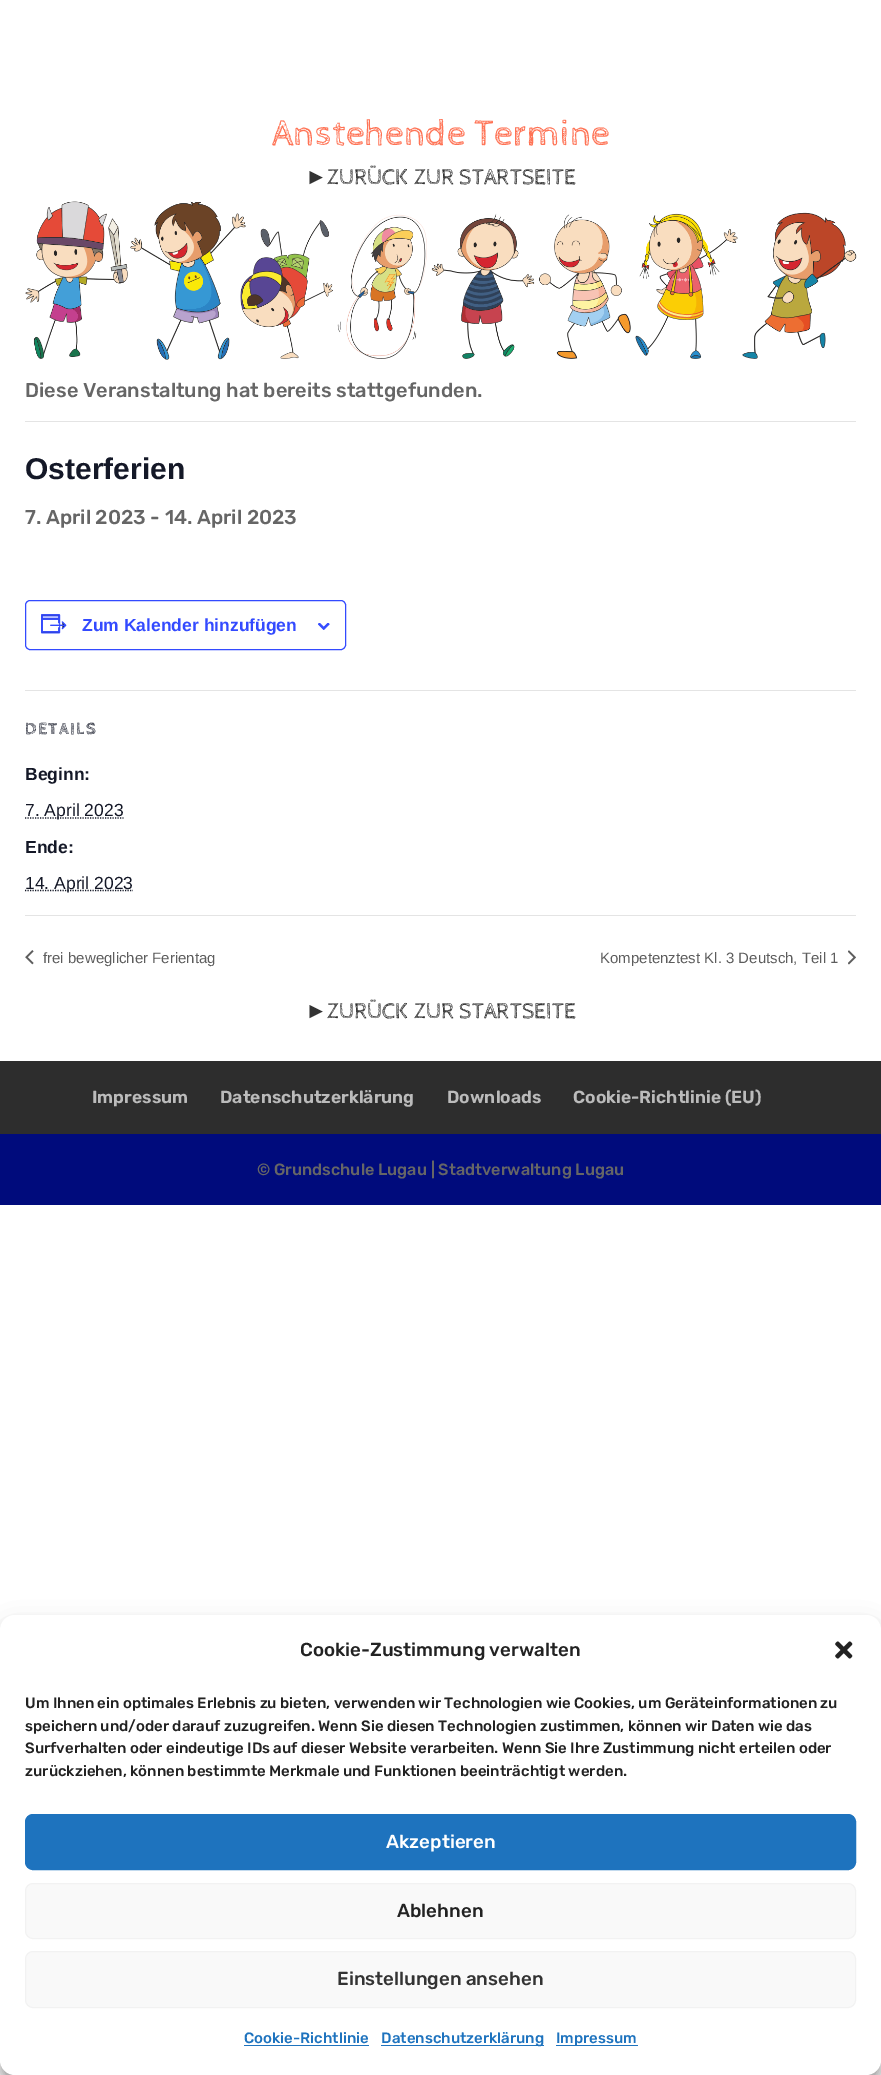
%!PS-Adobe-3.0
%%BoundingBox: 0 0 881 2075
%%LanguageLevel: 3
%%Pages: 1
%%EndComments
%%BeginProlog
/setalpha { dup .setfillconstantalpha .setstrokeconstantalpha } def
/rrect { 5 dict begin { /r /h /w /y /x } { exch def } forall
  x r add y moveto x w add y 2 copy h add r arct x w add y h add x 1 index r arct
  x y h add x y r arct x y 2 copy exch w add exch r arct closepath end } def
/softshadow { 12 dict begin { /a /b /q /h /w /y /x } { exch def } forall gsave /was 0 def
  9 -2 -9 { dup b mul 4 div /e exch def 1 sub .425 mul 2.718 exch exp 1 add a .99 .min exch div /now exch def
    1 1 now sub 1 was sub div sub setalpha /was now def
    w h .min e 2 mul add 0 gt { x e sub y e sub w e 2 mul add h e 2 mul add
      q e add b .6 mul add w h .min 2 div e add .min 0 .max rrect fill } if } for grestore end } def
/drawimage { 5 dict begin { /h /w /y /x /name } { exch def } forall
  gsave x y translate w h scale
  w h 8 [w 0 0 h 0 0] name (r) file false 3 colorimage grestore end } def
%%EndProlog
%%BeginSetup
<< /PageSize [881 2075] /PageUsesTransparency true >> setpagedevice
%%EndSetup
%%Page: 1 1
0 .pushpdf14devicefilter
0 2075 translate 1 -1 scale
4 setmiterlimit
1 setgray
0 0 881 2075 rectfill
(images/1.raw) 25 201 832 159 drawimage
0.894 setgray
25 421 831 1 rectfill
0.2 0.29 1 setrgbcolor
25.5 600.5 320 49 4.5 rrect stroke
(images/2.raw) 41 614 26 20 drawimage
(images/3.raw) 318 623 12 7 drawimage
0.894 setgray
25 690 831 1 rectfill
0.078 0.094 0.153 setrgbcolor
1.2 setlinewidth
[1.25 1.25] 0 setdash
newpath 25 818 moveto 123.5 818 lineto stroke
newpath 25 890.5 moveto 133 890.5 lineto stroke
0.894 setgray
25 915 831 1 rectfill
(images/4.raw) 25 950 9 15 drawimage
(images/5.raw) 848 950 8 15 drawimage
0.176 setgray
0 1061 881 73 rectfill
0 0.043 0.486 setrgbcolor
0 1134 881 71 rectfill
0 setgray
0 1623 881 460 15 4 0.23 softshadow
0 1628 881 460 15 12.5 0.19 softshadow
1 setgray
0 1615 881 460 15 rrect fill
(images/6.raw) 835 1641 18 18 drawimage
0.118 0.451 0.745 setrgbcolor
25.5 1814.5 830 55 7.5 rrect gsave fill grestore
1 setlinewidth
[] 0 setdash
stroke
0.976 setgray
25.5 1883.5 830 55 7.5 rrect gsave fill grestore
0.949 setgray
stroke
0.976 setgray
25.5 1951.5 830 56 7.5 rrect gsave fill grestore
0.949 setgray
stroke
0.118 0.451 0.745 setrgbcolor
244 2045 125 1 rectfill
381 2045 163 1 rectfill
556 2045 82 1 rectfill
/CabinSketch-Regular [37.5 0 0 -37.5 0 0] selectfont
1 0.451 0.333 setrgbcolor
272 145 moveto (Anstehende Termine) show
/LiberationSerif-Regular [22.5 0 0 -22.5 0 0] selectfont
0.2 setgray
305 184 moveto (►) show
/CabinSketch-Regular [22.5 0 0 -22.5 0 0] selectfont
327 184 moveto (ZURÜCK ZUR STARTSEITE) show
/Rubik-Light [20 0 0 -20 0 0] selectfont
0.4 setgray
25 397 moveto (Diese Veranstaltung hat bereits stattgefunden.) show
/LiberationSans-Bold [30 0 0 -30 0 0] selectfont
0.078 0.094 0.153 setrgbcolor
25 479 moveto (Osterferien) show
/Rubik-Light [20 0 0 -20 0 0] selectfont
0.4 setgray
25 524 moveto (7. April 2023 - 14. April 2023) show
/LiberationSans-Bold [17.5 0 0 -17.5 0 0] selectfont
0.2 0.29 1 setrgbcolor
82 631 moveto (Zum Kalender hinzufügen) show
/CabinSketch-Bold [17.5 0 0 -17.5 0 0] selectfont
0.078 0.094 0.153 setrgbcolor
25 734 moveto 1.25 0 (DETAILS) ashow
/LiberationSans-Bold [17.5 0 0 -17.5 0 0] selectfont
25 780 moveto (Beginn:) show
/LiberationSans-Regular [17.5 0 0 -17.5 0 0] selectfont
25 816 moveto (7. April 2023) show
/LiberationSans-Bold [17.5 0 0 -17.5 0 0] selectfont
25 853 moveto (Ende:) show
/LiberationSans-Regular [17.5 0 0 -17.5 0 0] selectfont
25 889 moveto (14. April 2023) show
/LiberationSans-Regular [15 0 0 -15 0 0] selectfont
0.365 setgray
43 963 moveto (frei beweglicher Ferientag) show
600 963 moveto (Kompetenztest Kl. 3 Deutsch, Teil 1) show
/LiberationSerif-Regular [22.5 0 0 -22.5 0 0] selectfont
0.2 setgray
305 1018 moveto (►) show
/CabinSketch-Regular [22.5 0 0 -22.5 0 0] selectfont
327 1018 moveto (ZURÜCK ZUR STARTSEITE) show
/Rubik-SemiBold [17.5 0 0 -17.5 0 0] selectfont
0.733 setgray
92 1103 moveto (Impressum) show
220 1103 moveto (Datenschutzerklärung) show
447 1103 moveto (Downloads) show
573 1103 moveto (Cookie-Richtlinie \(EU\)) show
/Rubik-Light [16.25 0 0 -16.25 0 0] selectfont
0.4 setgray
257 1175 moveto (© Grundschule Lugau | Stadtverwaltung Lugau) show
/Rubik-Light [18.75 0 0 -18.75 0 0] selectfont
0.133 setgray
300 1656 moveto (Cookie-Zustimmung verwalten) show
/Rubik-Light [15 0 0 -15 0 0] selectfont
25 1708 moveto (Um Ihnen ein optimales Erlebnis zu bieten, verwenden wir Technologien wie Cookies, um Geräteinformationen zu) show
25 1731 moveto (speichern und/oder darauf zuzugreifen. Wenn Sie diesen Technologien zustimmen, können wir Daten wie das) show
25 1753 moveto (Surfverhalten oder eindeutige IDs auf dieser Website verarbeiten. Wenn Sie Ihre Zustimmung nicht erteilen oder) show
25 1776 moveto (zurückziehen, können bestimmte Merkmale und Funktionen beeinträchtigt werden.) show
/Rubik-Light [18.75 0 0 -18.75 0 0] selectfont
1 setgray
386 1848 moveto (Akzeptieren) show
0.133 setgray
397 1917 moveto (Ablehnen) show
0.2 setgray
337 1985 moveto (Einstellungen ansehen) show
/Rubik-Light [15 0 0 -15 0 0] selectfont
0.118 0.451 0.745 setrgbcolor
244 2043 moveto (Cookie-Richtlinie) show
381 2043 moveto (Datenschutzerklärung) show
556 2043 moveto (Impressum) show
.poppdf14devicefilter showpage
%%EOF
